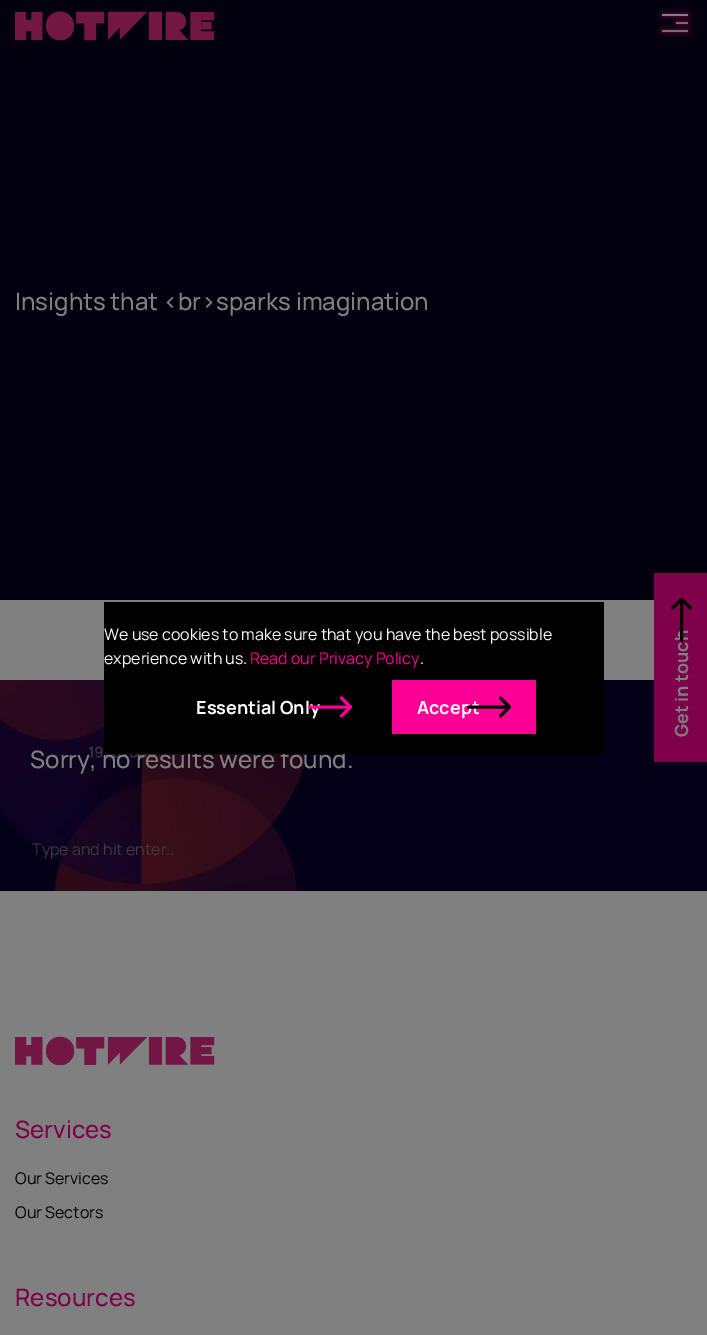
%!PS-Adobe-3.0
%%BoundingBox: 0 0 707 1335
%%LanguageLevel: 3
%%Pages: 1
%%EndComments
%%BeginProlog
/setalpha { dup .setfillconstantalpha .setstrokeconstantalpha } def
/rrect { 5 dict begin { /r /h /w /y /x } { exch def } forall
  x r add y moveto x w add y 2 copy h add r arct x w add y h add x 1 index r arct
  x y h add x y r arct x y 2 copy exch w add exch r arct closepath end } def
/softshadow { 12 dict begin { /a /b /q /h /w /y /x } { exch def } forall gsave /was 0 def
  9 -2 -9 { dup b mul 4 div /e exch def 1 sub .425 mul 2.718 exch exp 1 add a .99 .min exch div /now exch def
    1 1 now sub 1 was sub div sub setalpha /was now def
    w h .min e 2 mul add 0 gt { x e sub y e sub w e 2 mul add h e 2 mul add
      q e add b .6 mul add w h .min 2 div e add .min 0 .max rrect fill } if } for grestore end } def
/drawimage { 5 dict begin { /h /w /y /x /name } { exch def } forall
  gsave x y translate w h scale
  w h 8 [w 0 0 h 0 0] name (r) file false 3 colorimage grestore end } def
%%EndProlog
%%BeginSetup
<< /PageSize [707 1335] /PageUsesTransparency true >> setpagedevice
%%EndSetup
%%Page: 1 1
0 .pushpdf14devicefilter
0 1335 translate 1 -1 scale
4 setmiterlimit
0.502 setgray
0 0 707 1335 rectfill
0.012 0 0.059 setrgbcolor
0 0 707 600 rectfill
(images/1.raw) 15 11 200 30 drawimage
0.498 0 0.294 setrgbcolor
662 14 26 2 1 2.5 1 softshadow
0.502 setgray
662 14 26 2 1 rrect fill
0.498 0 0.294 setrgbcolor
676 22 12 2 1 2.5 1 softshadow
0.435 setgray
676 22 12 2 1 rrect fill
0.498 0 0.294 setrgbcolor
662 30 26 2 1 2.5 1 softshadow
0.435 setgray
662 30 26 2 1 rrect fill
(images/2.raw) 0 680 707 211 drawimage
0.498 0 0.294 setrgbcolor
654 573 53 189 rectfill
(images/3.raw) 15 1036 200 30 drawimage
/Manrope-Medium [24 0 0 -24 0 0] selectfont
0.502 setgray
15 310 moveto (Insights that <br>sparks imagination) show
/Manrope-Bold [18 0 0 -18 0 0] selectfont
gsave 688 737 translate -90 rotate 0 0 moveto (Get in touch) show grestore
0 setgray
3 setlinewidth
1 setlinecap
1 setlinejoin
newpath 672.5 608 moveto 681.5 599.5 lineto 681.5 599.5 moveto 690.5 608 lineto 681.5 599.5 moveto 681.5 640.5 lineto stroke
/Manrope-Medium [24 0 0 -24 0 0] selectfont
0.502 setgray
30 768 moveto (Sorry, no results were found.) show
0 setgray
104 602 500 152 rectfill
0.992 0 0.584 setrgbcolor
392 680 144 54 rectfill
/Manrope-Bold [18 0 0 -18 0 0] selectfont
1 setgray
417 714 moveto (Accept) show
0 setgray
newpath 500.5 698 moveto 509.5 707 lineto 509.5 707 moveto 500.5 716 lineto 509.5 707 moveto 468.5 707 lineto stroke
1 setgray
196 714 moveto (Essential Only) show
0.992 0 0.584 setrgbcolor
newpath 341.5 698 moveto 350.5 707 lineto 350.5 707 moveto 341.5 716 lineto 350.5 707 moveto 309.5 707 lineto stroke
/Manrope-Regular [16 0 0 -16 0 0] selectfont
1 setgray
420 664 moveto (.) show
0.992 0 0.584 setrgbcolor
250 664 moveto (Read our Privacy Policy) show
1 setgray
104 664 moveto (experience with us.) show
104 640 moveto (We use cookies to make sure that you have the best possible) show
0.231 setgray
32 855 moveto (Type and hit enter..) show
/Manrope-Medium [24 0 0 -24 0 0] selectfont
0.498 0 0.294 setrgbcolor
15 1138 moveto (Services) show
/Manrope-Regular [16 0 0 -16 0 0] selectfont
0 setgray
15 1184 moveto (Our Services) show
15 1218 moveto (Our Sectors) show
/Manrope-Medium [24 0 0 -24 0 0] selectfont
0.498 0 0.294 setrgbcolor
15 1306 moveto (Resources) show
.poppdf14devicefilter showpage
%%EOF
